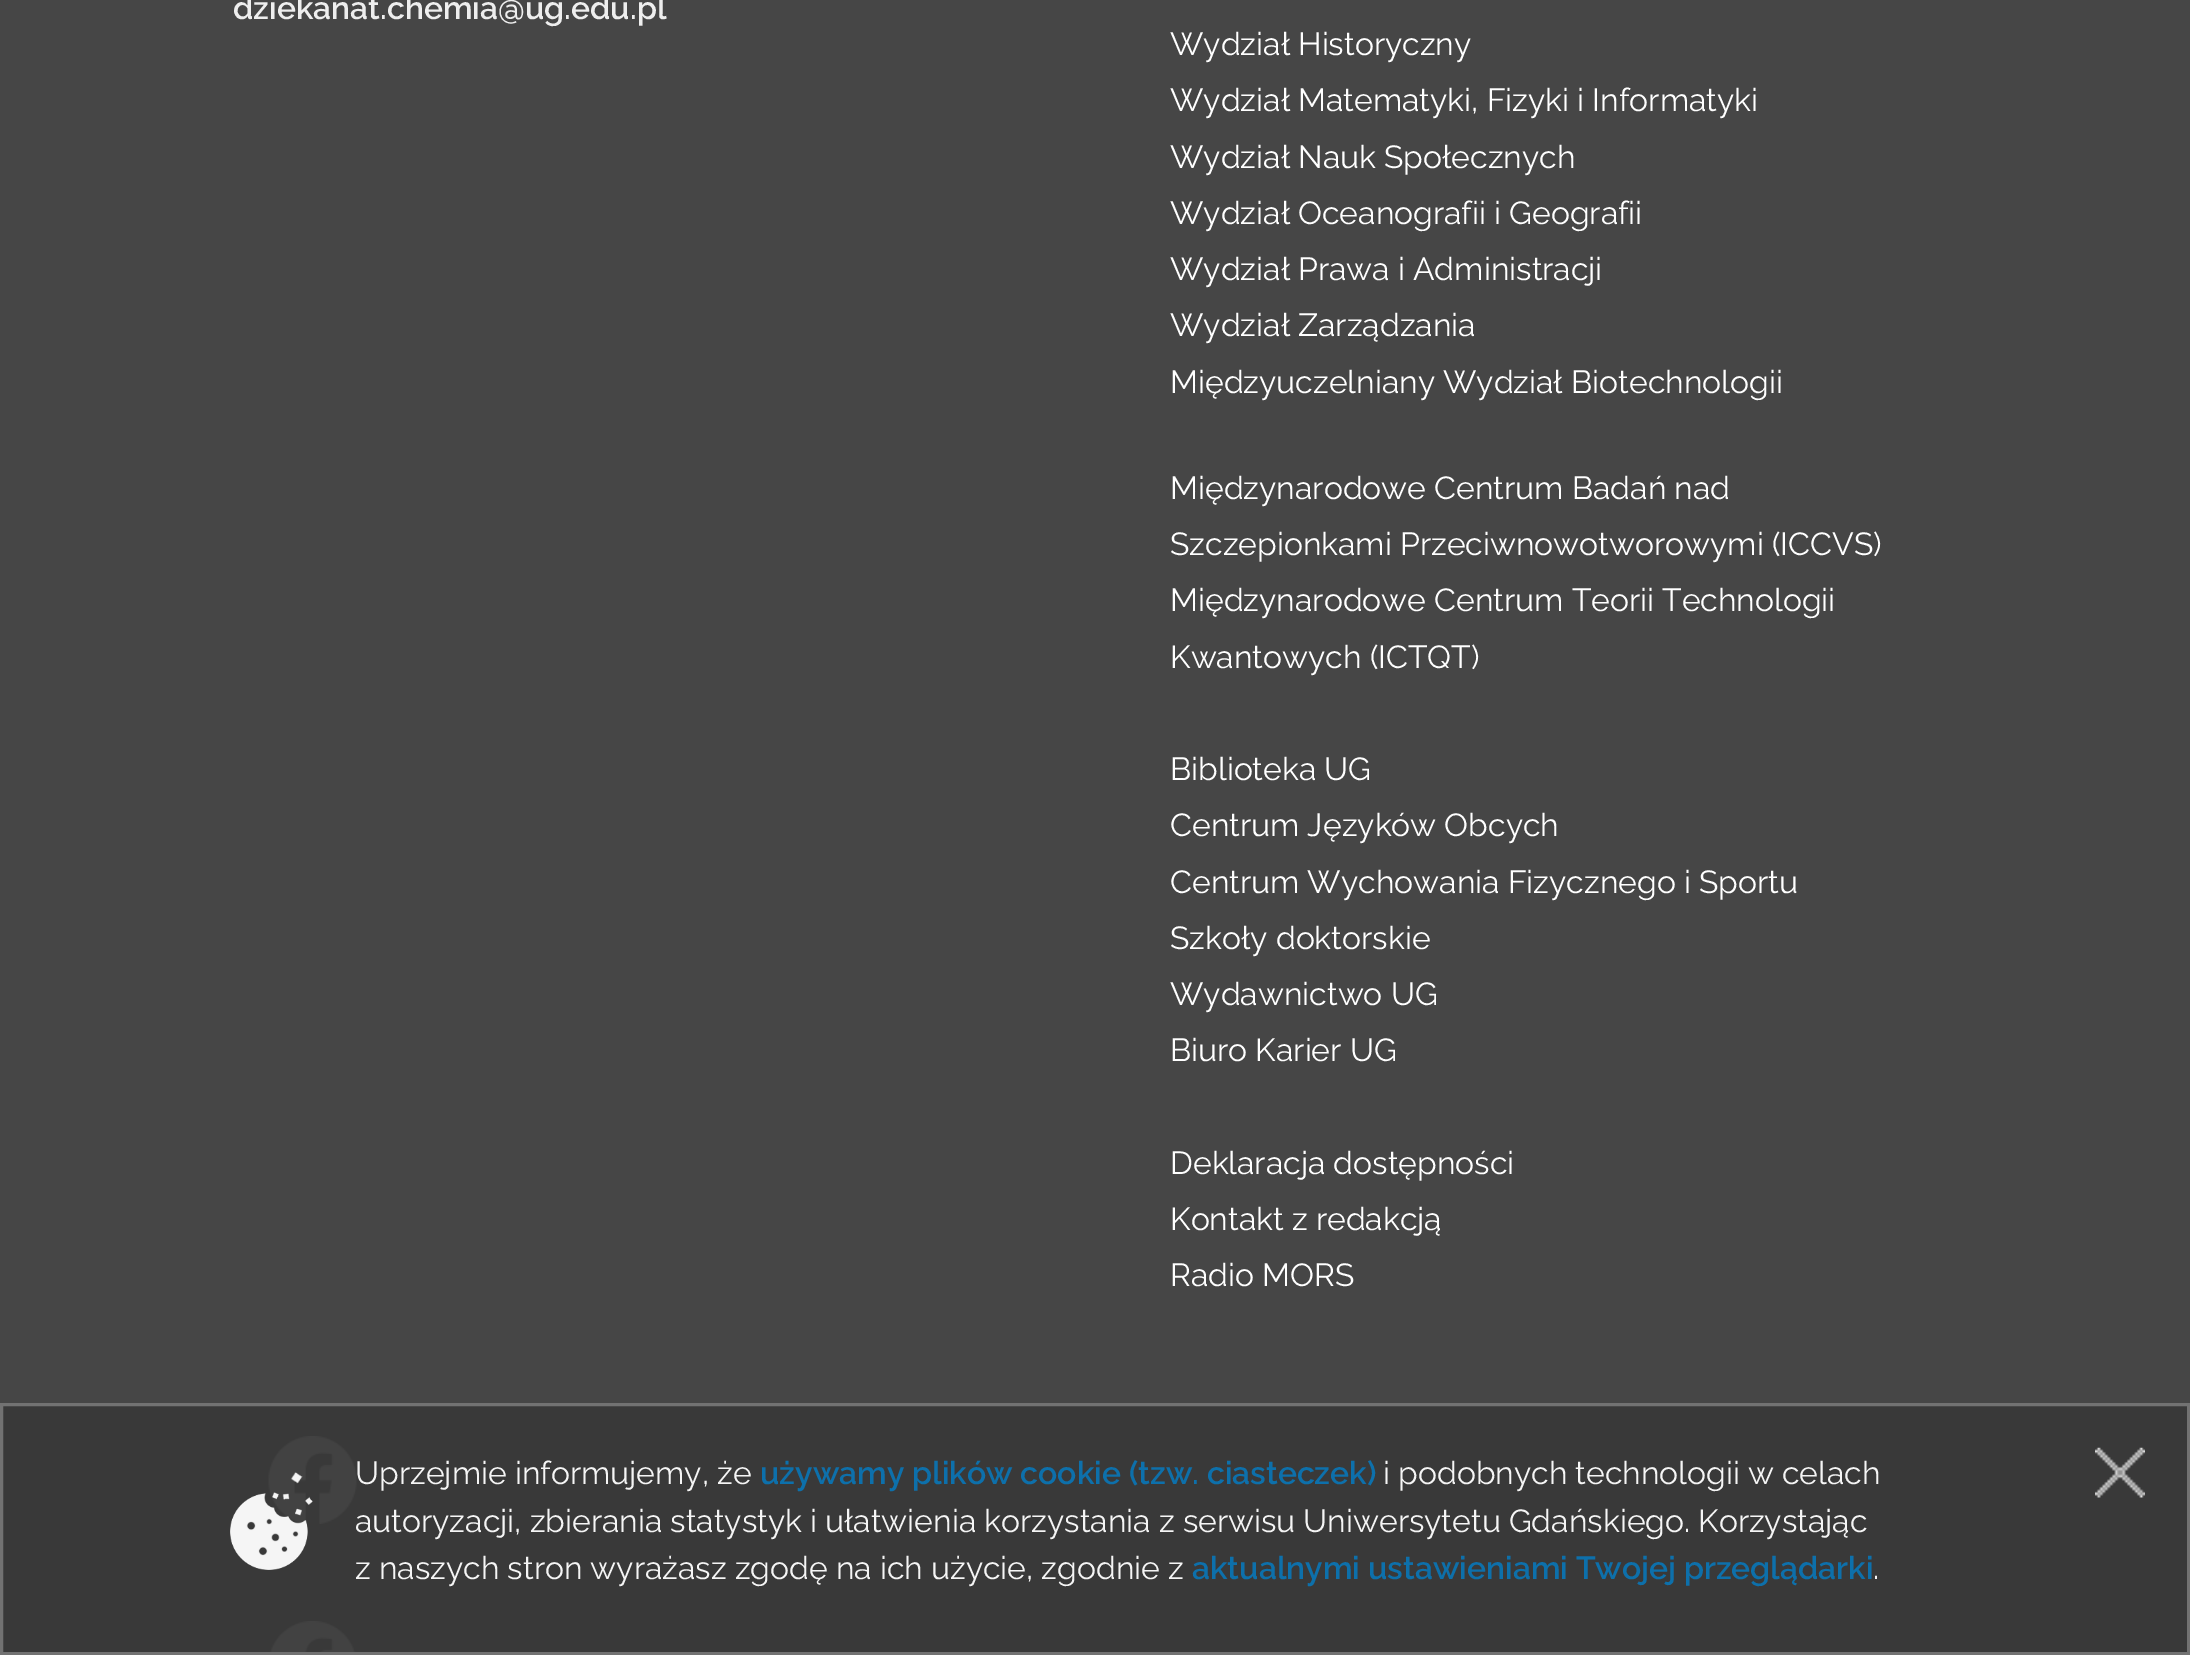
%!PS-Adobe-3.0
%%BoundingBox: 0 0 2190 1655
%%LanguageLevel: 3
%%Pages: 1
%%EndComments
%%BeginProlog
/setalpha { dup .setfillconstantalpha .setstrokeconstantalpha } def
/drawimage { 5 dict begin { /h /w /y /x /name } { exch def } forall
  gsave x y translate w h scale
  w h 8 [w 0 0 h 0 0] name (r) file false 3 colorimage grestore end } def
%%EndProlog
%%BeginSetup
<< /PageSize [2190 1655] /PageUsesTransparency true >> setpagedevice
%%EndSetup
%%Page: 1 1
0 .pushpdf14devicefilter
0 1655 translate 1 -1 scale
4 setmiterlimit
0.275 setgray
0 0 2190 1655 rectfill
0.224 setgray
0 1403 2190 252 rectfill
(images/1.raw) 268 1436 89 88 drawimage
(images/2.raw) 268 1621 89 34 drawimage
0.95 setalpha
0.459 setgray
3 setlinewidth
1.5 1404.5 2187 249 rectstroke
1 setalpha
(images/3.raw) 230 1472 83 98 drawimage
(images/4.raw) 2095 1447 50 51 drawimage
/Raleway-SemiBold [31.9 0 0 -31.9 0 0] selectfont
0.933 setgray
233 19 moveto (dziekanat.chemia@ug.edu.pl) show
/Raleway-Regular [31.9 0 0 -31.9 0 0] selectfont
1 setgray
1170 55 moveto (Wydział Historyczny) show
1170 111 moveto (Wydział Matematyki, Fizyki i Informatyki) show
1170 168 moveto (Wydział Nauk Społecznych) show
1170 224 moveto (Wydział Oceanografii i Geografii) show
1170 280 moveto (Wydział Prawa i Administracji) show
1170 336 moveto (Wydział Zarządzania) show
1170 393 moveto (Międzyuczelniany Wydział Biotechnologii) show
1170 499 moveto (Międzynarodowe Centrum Badań nad) show
1170 555 moveto (Szczepionkami Przeciwnowotworowymi \(ICCVS\)) show
1170 611 moveto (Międzynarodowe Centrum Teorii Technologii) show
1170 668 moveto (Kwantowych \(ICTQT\)) show
1170 780 moveto (Biblioteka UG) show
1170 836 moveto (Centrum Języków Obcych) show
1170 893 moveto (Centrum Wychowania Fizycznego i Sportu) show
1170 949 moveto (Szkoły doktorskie) show
1170 1005 moveto (Wydawnictwo UG) show
1170 1061 moveto (Biuro Karier UG) show
1170 1174 moveto (Deklaracja dostępności) show
1170 1230 moveto (Kontakt z redakcją) show
1170 1286 moveto (Radio MORS) show
0.961 setgray
355 1484 moveto (Uprzejmie informujemy, że) show
/Raleway-SemiBold [31.9 0 0 -31.9 0 0] selectfont
0.051 0.439 0.671 setrgbcolor
760 1484 moveto (używamy plików cookie \(tzw. ciasteczek\)) show
/Raleway-Regular [31.9 0 0 -31.9 0 0] selectfont
0.961 setgray
1383 1484 moveto (i podobnych technologii w celach) show
355 1532 moveto (autoryzacji, zbierania statystyk i ułatwienia korzystania z serwisu Uniwersytetu Gdańskiego. Korzystając) show
355 1579 moveto (z naszych stron wyrażasz zgodę na ich użycie, zgodnie z) show
/Raleway-SemiBold [31.9 0 0 -31.9 0 0] selectfont
0.051 0.439 0.671 setrgbcolor
1192 1579 moveto (aktualnymi ustawieniami Twojej przeglądarki) show
/Raleway-Regular [31.9 0 0 -31.9 0 0] selectfont
0.961 setgray
1873 1579 moveto (.) show
.poppdf14devicefilter showpage
%%EOF
